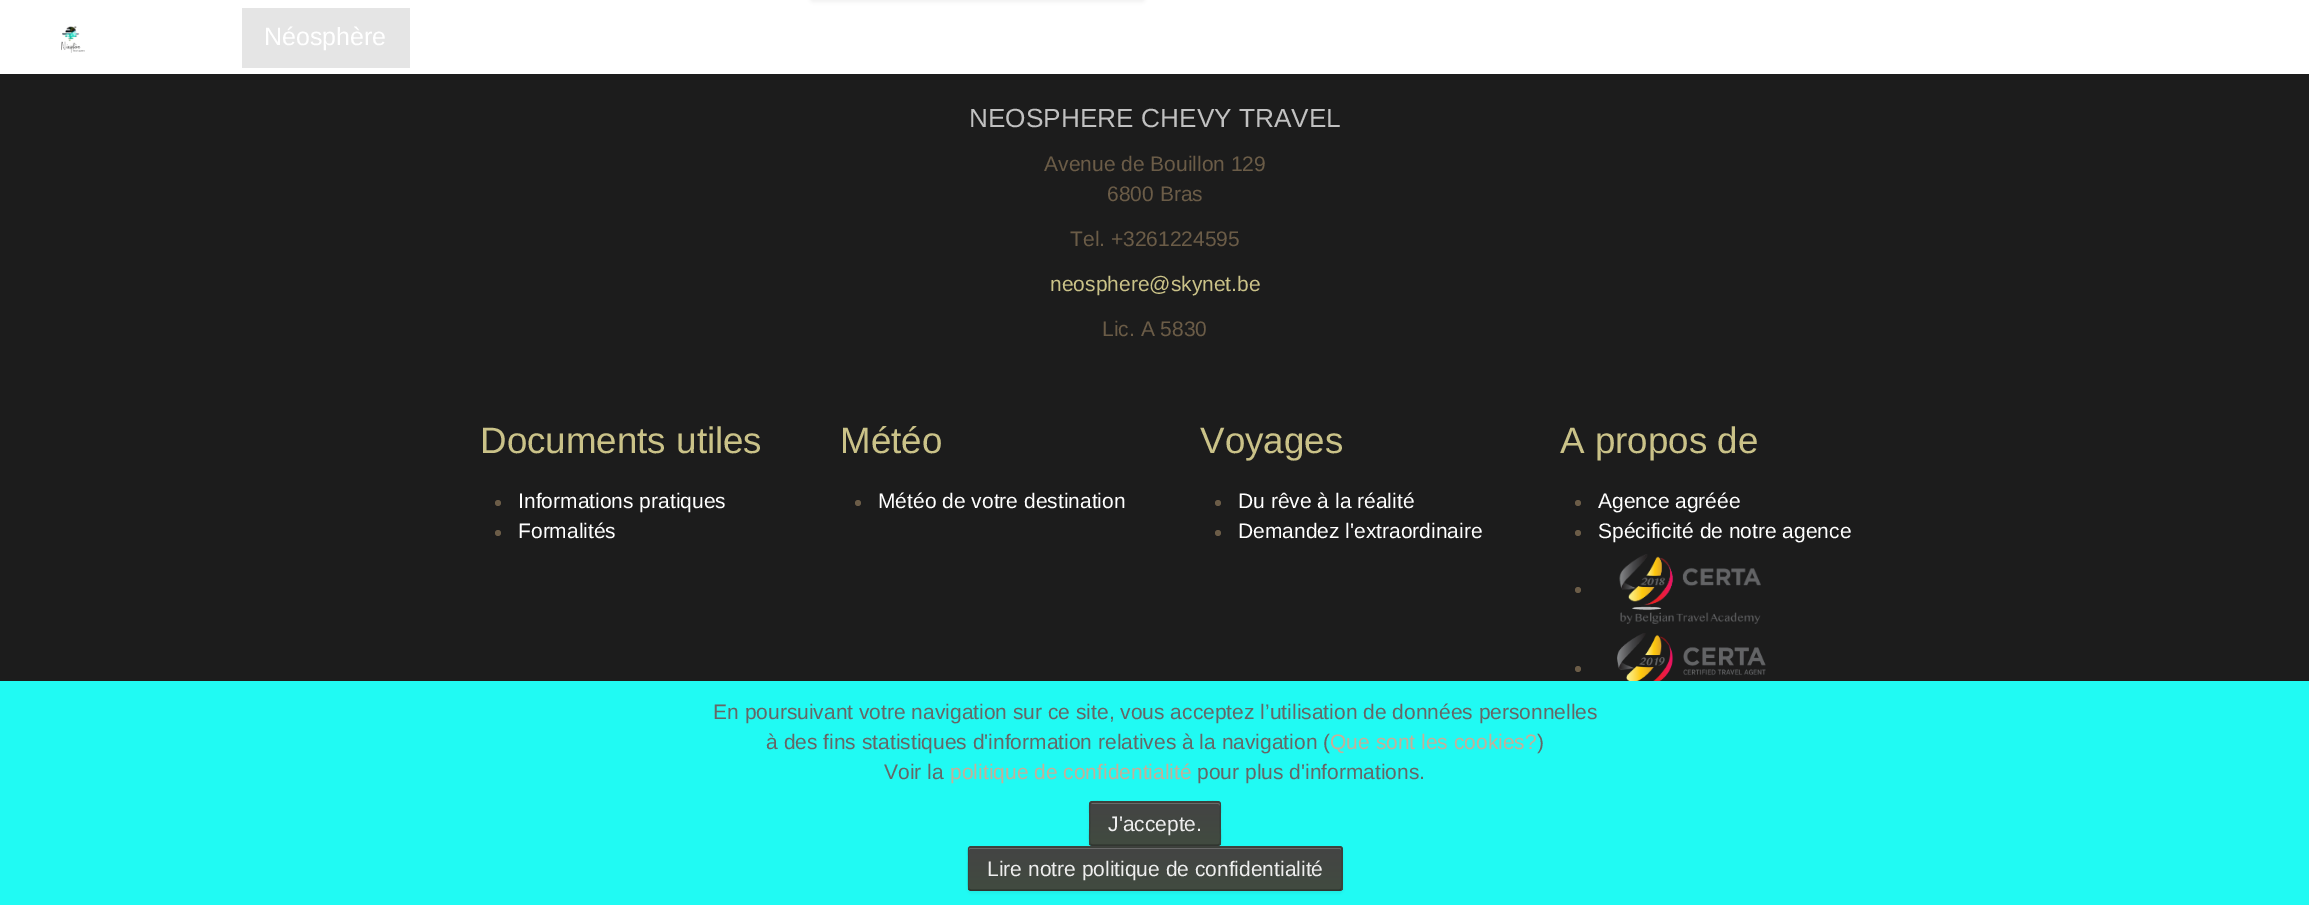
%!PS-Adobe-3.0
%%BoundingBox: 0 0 2309 905
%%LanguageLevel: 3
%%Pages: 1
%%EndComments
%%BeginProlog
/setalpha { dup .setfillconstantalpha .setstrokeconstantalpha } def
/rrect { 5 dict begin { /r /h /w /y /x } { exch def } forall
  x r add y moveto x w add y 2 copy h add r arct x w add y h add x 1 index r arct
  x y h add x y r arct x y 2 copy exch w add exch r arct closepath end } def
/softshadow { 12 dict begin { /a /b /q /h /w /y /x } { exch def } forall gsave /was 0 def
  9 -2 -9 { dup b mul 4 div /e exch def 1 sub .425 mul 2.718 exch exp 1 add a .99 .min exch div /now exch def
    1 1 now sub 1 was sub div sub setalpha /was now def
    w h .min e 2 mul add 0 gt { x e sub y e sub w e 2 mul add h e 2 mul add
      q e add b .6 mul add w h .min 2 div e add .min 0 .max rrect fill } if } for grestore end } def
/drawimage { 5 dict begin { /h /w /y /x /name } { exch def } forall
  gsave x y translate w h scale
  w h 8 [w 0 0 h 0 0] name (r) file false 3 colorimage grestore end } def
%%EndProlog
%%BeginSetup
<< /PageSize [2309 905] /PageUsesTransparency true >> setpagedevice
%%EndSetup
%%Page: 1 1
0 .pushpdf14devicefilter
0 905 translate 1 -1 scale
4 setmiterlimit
1 setgray
0 0 2309 905 rectfill
0 setgray
810 -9 335 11 3 2 0.06 softshadow
(images/1.raw) 61 26 24 27 drawimage
0.898 setgray
242 8 168 60 rectfill
0.11 setgray
0 74 2309 607 rectfill
0.42 0.361 0.278 setrgbcolor
newpath 498 503 3 0 360 arc closepath fill
newpath 498 533 3 0 360 arc closepath fill
newpath 858 503 3 0 360 arc closepath fill
newpath 1218 503 3 0 360 arc closepath fill
newpath 1218 533 3 0 360 arc closepath fill
newpath 1578 503 3 0 360 arc closepath fill
newpath 1578 533 3 0 360 arc closepath fill
newpath 1578 590 3 0 360 arc closepath fill
(images/2.raw) 1619 554 142 70 drawimage
newpath 1578 669 3 0 360 arc closepath fill
(images/3.raw) 1617 633 149 48 drawimage
0.125 0.98 0.953 setrgbcolor
0 681 2309 224 rectfill
0 setgray
1089 803 132 45 3 1.5 0.05 softshadow
0.263 0.278 0.259 setrgbcolor
1089 801 132 45 3 rrect fill
gsave
1089 801 132 45 3 rrect clip newpath
gsave newpath 1089 803 moveto 1221 803 lineto 1221 845 lineto 1089 845 lineto closepath clip newpath
<< /ShadingType 2 /ColorSpace /DeviceRGB /Coords [1155 803 1155 845] /Extend [true true] /Function << /FunctionType 2 /Domain [0 1] /C0 [0.267 0.267 0.267] /C1 [0.255 0.294 0.251] /N 1 >> >> shfill grestore
grestore
0.412 setgray
newpath 1092 804 moveto 1218 804 lineto 1219 804 1220 805 1220 806 curveto 1220 804 lineto 1220 804 1219 803 1218 803 curveto 1092 803 lineto 1092 803 1091 804 1091 804 curveto closepath fill
0.25 setalpha
0 setgray
1.5 setlinewidth
newpath 1219.5 844.5 moveto 1218 845 lineto 1092 845 lineto 1090.5 844.5 lineto stroke
0.1 setalpha
newpath 1090.5 844.5 moveto 1088.5 843 1090 826.5 1090 823.5 curveto 1090 796 1084.5 802 1113 802 curveto 1197 802 lineto 1225.5 802 1220 796 1220 823.5 curveto 1220 826.5 1221.5 843 1219.5 844.5 curveto stroke
1 setalpha
968 848 375 45 3 1.5 0.05 softshadow
0.263 0.278 0.259 setrgbcolor
968 846 375 45 3 rrect fill
gsave
968 846 375 45 3 rrect clip newpath
gsave newpath 968 848 moveto 1343 848 lineto 1343 890 lineto 968 890 lineto closepath clip newpath
<< /ShadingType 2 /ColorSpace /DeviceRGB /Coords [1155 848 1155 890] /Extend [true true] /Function << /FunctionType 2 /Domain [0 1] /C0 [0.267 0.267 0.267] /C1 [0.255 0.294 0.251] /N 1 >> >> shfill grestore
grestore
0.412 setgray
newpath 970 849 moveto 1340 849 lineto 1341 850 lineto 1341 849 1341 848 1340 848 curveto 970 848 lineto 969 848 969 849 969 850 curveto closepath fill
0.25 setalpha
0 setgray
newpath 1341 889.5 moveto 1339.5 890 lineto 970.5 890 lineto 969 889.5 lineto stroke
0.1 setalpha
newpath 969 889.5 moveto 967 888 968 866 968 862 curveto 968 855.5 lineto 968 854.5 966.5 847 970.5 847 curveto 1339.5 847 lineto 1343.5 847 1342 854.5 1342 855.5 curveto 1342 862 lineto 1342 866 1343 888 1341 889.5 curveto stroke
/LiberationSans-Regular [25 0 0 -25 0 0] selectfont
1 setalpha
1 setgray
264 45 moveto (Néosphère) show
/LiberationSans-Regular [26.25 0 0 -26.25 0 0] selectfont
0.757 setgray
969 127 moveto (NEOSPHERE CHEVY TRAVEL) show
/LiberationSans-Regular [21 0 0 -21 0 0] selectfont
0.42 0.361 0.278 setrgbcolor
1044 171 moveto (Avenue de Bouillon 129) show
1107 201 moveto (6800 Bras) show
1070 246 moveto (Tel. +3261224595) show
0.792 0.761 0.533 setrgbcolor
1050 291 moveto (neosphere@skynet.be) show
0.42 0.361 0.278 setrgbcolor
1102 336 moveto (Lic. A 5830) show
/LiberationSans-Regular [36.75 0 0 -36.75 0 0] selectfont
0.792 0.761 0.533 setrgbcolor
480 453 moveto (Documents utiles) show
/LiberationSans-Regular [21 0 0 -21 0 0] selectfont
1 setgray
518 508 moveto (Informations pratiques) show
518 538 moveto (Formalités) show
/LiberationSans-Regular [36.75 0 0 -36.75 0 0] selectfont
0.792 0.761 0.533 setrgbcolor
840 453 moveto (Météo) show
/LiberationSans-Regular [21 0 0 -21 0 0] selectfont
1 setgray
878 508 moveto (Météo de votre destination) show
/LiberationSans-Regular [36.75 0 0 -36.75 0 0] selectfont
0.792 0.761 0.533 setrgbcolor
1200 453 moveto (Voyages) show
/LiberationSans-Regular [21 0 0 -21 0 0] selectfont
1 setgray
1238 508 moveto (Du rêve à la réalité) show
1238 538 moveto (Demandez l'extraordinaire) show
/LiberationSans-Regular [36.75 0 0 -36.75 0 0] selectfont
0.792 0.761 0.533 setrgbcolor
1560 453 moveto (A propos de) show
/LiberationSans-Regular [21 0 0 -21 0 0] selectfont
1 setgray
1598 508 moveto (Agence agréée) show
1598 538 moveto (Spécificité de notre agence) show
0.4 setgray
713 719 moveto (En poursuivant votre navigation sur ce site, vous acceptez l’utilisation de données personnelles) show
766 749 moveto (à des fins statistiques d'information relatives à la navigation \() show
0.773 0.686 0.596 setrgbcolor
1330 749 moveto (Que sont les cookies?) show
0.4 setgray
1537 749 moveto (\)) show
884 779 moveto (Voir la) show
0.773 0.686 0.596 setrgbcolor
950 779 moveto (politique de confidentialité) show
0.4 setgray
1197 779 moveto (pour plus d'informations.) show
0.933 setgray
1108 831 moveto (J'accepte.) show
987 876 moveto (Lire notre politique de confidentialité) show
.poppdf14devicefilter showpage
%%EOF
